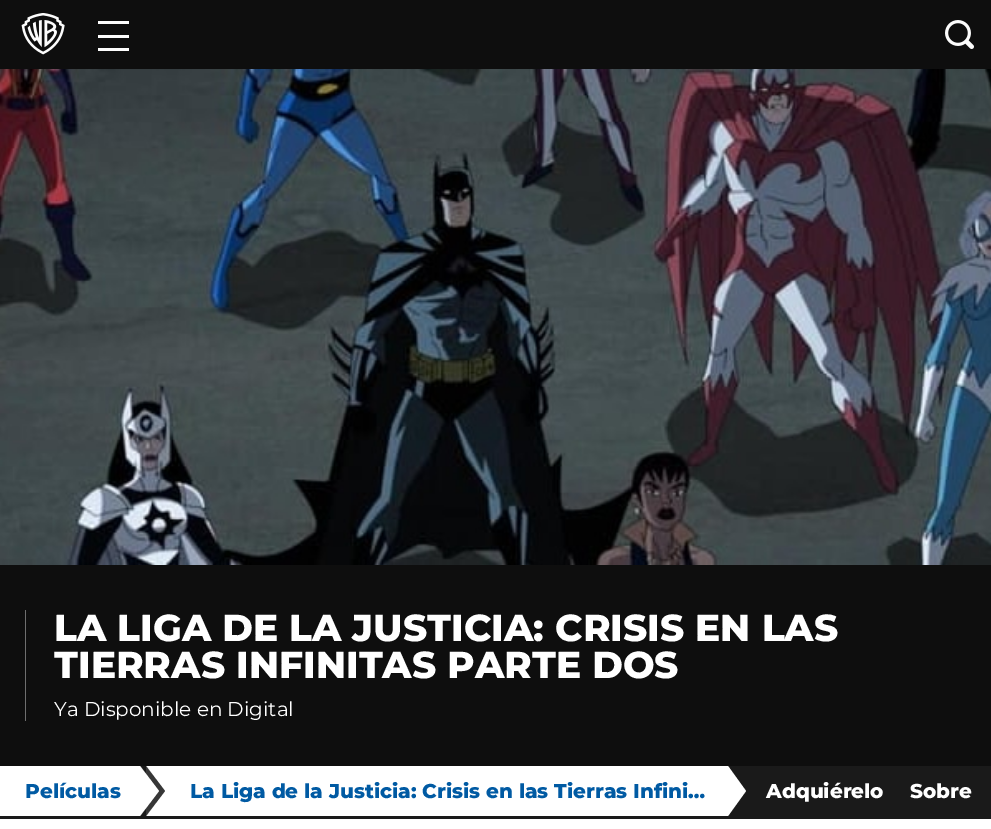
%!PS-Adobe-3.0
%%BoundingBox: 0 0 991 829
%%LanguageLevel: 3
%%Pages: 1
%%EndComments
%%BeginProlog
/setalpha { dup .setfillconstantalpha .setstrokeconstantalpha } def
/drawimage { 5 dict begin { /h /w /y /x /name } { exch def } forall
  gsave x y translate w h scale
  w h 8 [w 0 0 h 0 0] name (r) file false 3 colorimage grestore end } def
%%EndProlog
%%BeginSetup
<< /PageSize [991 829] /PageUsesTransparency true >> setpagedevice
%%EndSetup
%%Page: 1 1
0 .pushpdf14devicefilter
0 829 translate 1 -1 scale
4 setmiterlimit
0.055 setgray
0 0 991 829 rectfill
(images/3.raw) 0 68 991 497 drawimage
0.99 setalpha
0 68 991 1 rectfill
1 setalpha
(images/1.raw) 21 13 44 42 drawimage
0.992 setgray
98 21 31 3 rectfill
98 35 31 3 rectfill
98 48 31 3 rectfill
(images/2.raw) 945 20 29 29 drawimage
0.431 setgray
25 610 1 111 rectfill
0.102 setgray
0 766 991 53 rectfill
1 setgray
0 766 140 50 rectfill
146 766 582 50 rectfill
0.216 setgray
newpath 146 816 moveto 146 766 lineto 165 791 lineto closepath fill
1 setgray
newpath 140 816 moveto 140 766 lineto 159 791 lineto closepath fill
newpath 728 816 moveto 728 766 lineto 746 791 lineto closepath fill
0 819 991 10 rectfill
/Montserrat-ExtraBold [37.5 0 0 -37.5 0 0] selectfont
54 641 moveto (LA LIGA DE LA JUSTICIA: CRISIS EN LAS) show
54 678 moveto (TIERRAS INFINITAS PARTE DOS) show
/Montserrat-Regular [20 0 0 -20 0 0] selectfont
54 716 moveto (Ya Disponible en Digital) show
/Montserrat-ExtraBold [20 0 0 -20 0 0] selectfont
0 0.353 0.639 setrgbcolor
25 798 moveto (Películas) show
190 798 moveto (La Liga de la Justicia: Crisis en las Tierras Infini…) show
1 setgray
766 798 moveto (Adquiérelo) show
910 798 moveto (Sobre) show
.poppdf14devicefilter showpage
%%EOF
